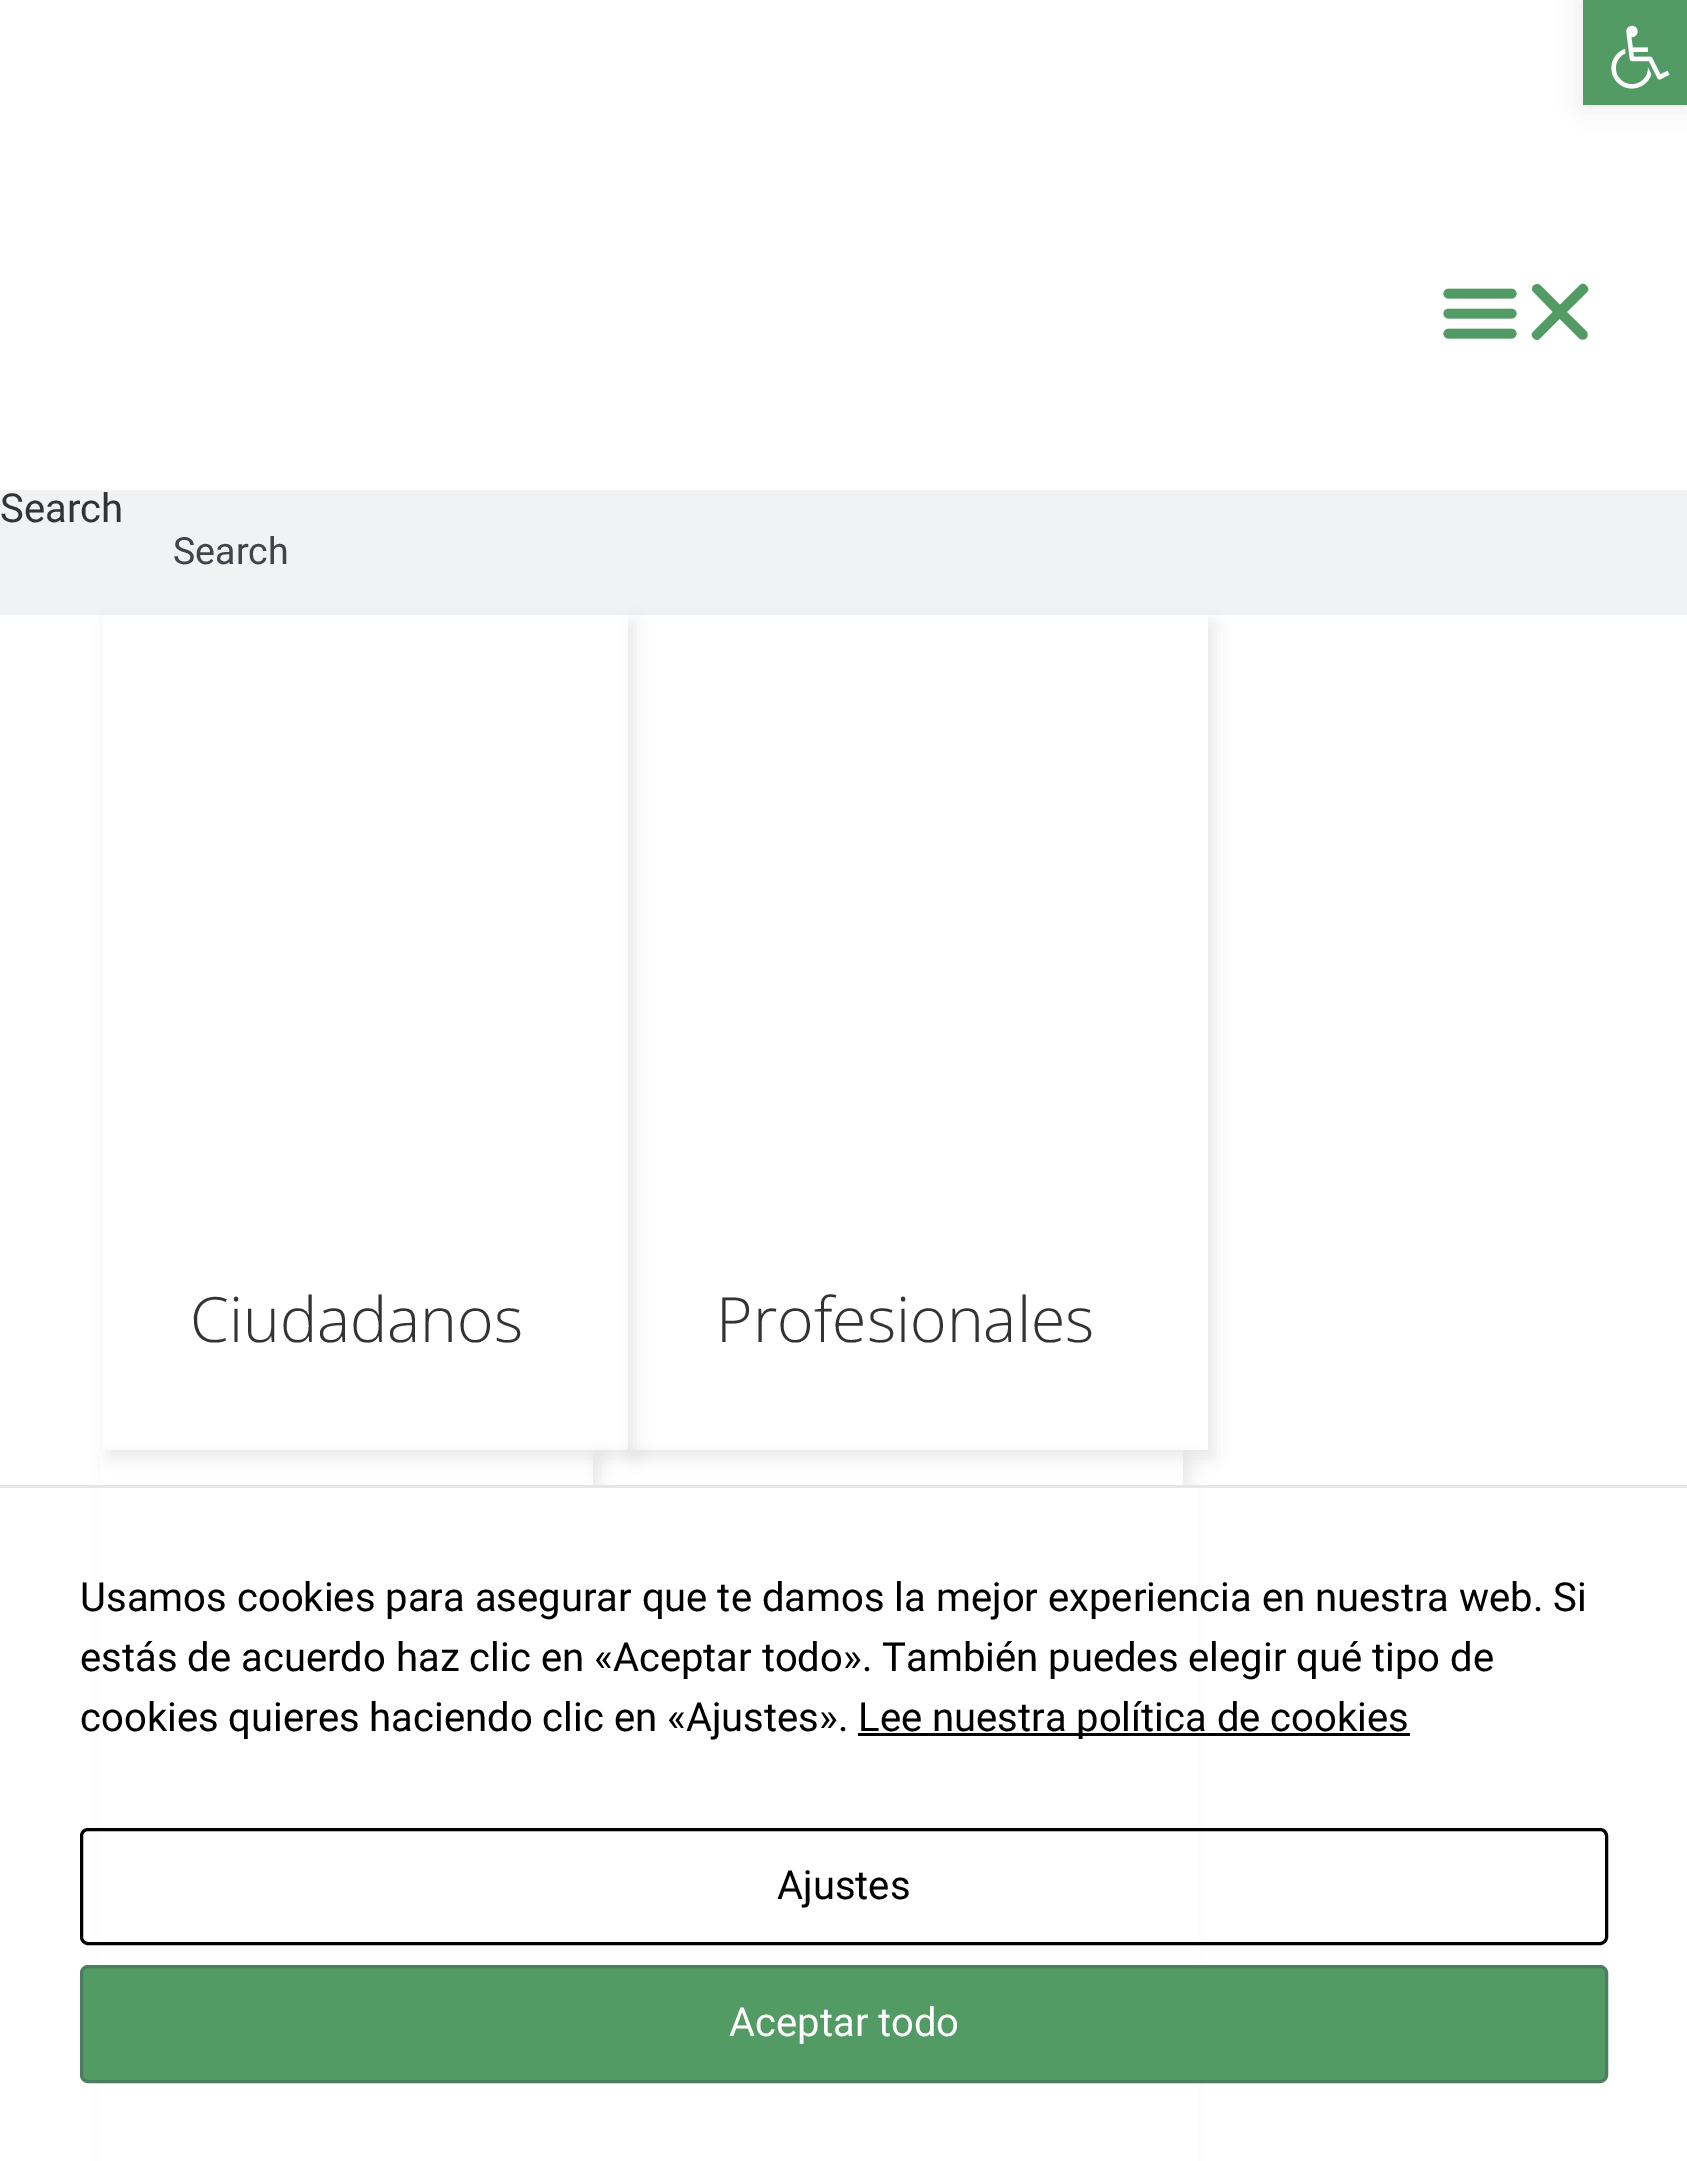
%!PS-Adobe-3.0
%%BoundingBox: 0 0 1687 2161
%%LanguageLevel: 3
%%Pages: 1
%%EndComments
%%BeginProlog
/setalpha { dup .setfillconstantalpha .setstrokeconstantalpha } def
/rrect { 5 dict begin { /r /h /w /y /x } { exch def } forall
  x r add y moveto x w add y 2 copy h add r arct x w add y h add x 1 index r arct
  x y h add x y r arct x y 2 copy exch w add exch r arct closepath end } def
/softshadow { 12 dict begin { /a /b /q /h /w /y /x } { exch def } forall gsave /was 0 def
  9 -2 -9 { dup b mul 4 div /e exch def 1 sub .425 mul 2.718 exch exp 1 add a .99 .min exch div /now exch def
    1 1 now sub 1 was sub div sub setalpha /was now def
    w h .min e 2 mul add 0 gt { x e sub y e sub w e 2 mul add h e 2 mul add
      q e add b .6 mul add w h .min 2 div e add .min 0 .max rrect fill } if } for grestore end } def
/drawimage { 5 dict begin { /h /w /y /x /name } { exch def } forall
  gsave x y translate w h scale
  w h 8 [w 0 0 h 0 0] name (r) file false 3 colorimage grestore end } def
%%EndProlog
%%BeginSetup
<< /PageSize [1687 2161] /PageUsesTransparency true >> setpagedevice
%%EndSetup
%%Page: 1 1
0 .pushpdf14devicefilter
0 2161 translate 1 -1 scale
4 setmiterlimit
1 setgray
0 0 1687 2161 rectfill
0 setgray
1583 0 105 105 0 12.5 0.1 softshadow
0.325 0.608 0.392 setrgbcolor
1583 0 104 105 rectfill
(images/1.raw) 1611 25 59 64 drawimage
0.945 0.949 0.953 setrgbcolor
0 490 1687 125 rectfill
(images/2.raw) 1443 288 74 51 drawimage
(images/3.raw) 1531 283 58 57 drawimage
gsave
newpath 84 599 moveto 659 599 lineto 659 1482 lineto 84 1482 lineto closepath 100 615 moveto 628 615 lineto 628 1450 lineto 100 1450 lineto closepath eoclip newpath
0 setgray
108 623 527 835 0 7.5 0.08 softshadow
grestore
0.98 setgray
100 615 3 835 rectfill
gsave
newpath 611 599 moveto 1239 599 lineto 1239 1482 lineto 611 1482 lineto closepath 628 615 moveto 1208 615 lineto 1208 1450 lineto 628 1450 lineto closepath eoclip newpath
0 setgray
635 623 580 835 0 7.5 0.08 softshadow
grestore
gsave
newpath 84 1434 moveto 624 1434 lineto 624 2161 lineto 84 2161 lineto closepath 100 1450 moveto 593 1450 lineto 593 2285 lineto 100 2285 lineto closepath eoclip newpath
0 setgray
108 1458 492 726 0 7.5 0.08 softshadow
grestore
gsave
newpath 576 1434 moveto 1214 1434 lineto 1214 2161 lineto 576 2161 lineto closepath 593 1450 moveto 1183 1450 lineto 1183 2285 lineto 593 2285 lineto closepath eoclip newpath
0 setgray
600 1458 590 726 0 7.5 0.08 softshadow
grestore
1 setgray
99 1488 1100 673 rectfill
0.902 setgray
0 1485 1687 3 rectfill
0 setgray
858 1733 552 3 rectfill
3 setlinewidth
81.5 1829.5 1525 114 6.5 rrect stroke
0.325 0.608 0.392 setrgbcolor
81.5 1966.5 1525 115 6.5 rrect gsave fill grestore
0.294 0.49 0.369 setrgbcolor
stroke
/Roboto-Regular [40 0 0 -40 0 0] selectfont
0.2 setgray
0 522 moveto (Search) show
/Roboto-Regular [37.5 0 0 -37.5 0 0] selectfont
0.247 0.267 0.294 setrgbcolor
173 564 moveto (Search) show
/OpenSans-Light [62.5 0 0 -62.5 0 0] selectfont
0.2 setgray
190 1342 moveto (Ciudadanos) show
716 1342 moveto (Profesionales) show
/Roboto-Regular [40 0 0 -40 0 0] selectfont
0 setgray
80 1611 moveto (Usamos cookies para asegurar que te damos la mejor experiencia en nuestra web. Si) show
80 1671 moveto (estás de acuerdo haz clic en «Aceptar todo». También puedes elegir qué tipo de) show
80 1731 moveto (cookies quieres haciendo clic en «Ajustes».) show
858 1731 moveto (Lee nuestra política de cookies) show
777 1899 moveto (Ajustes) show
1 setgray
729 2036 moveto (Aceptar todo) show
.poppdf14devicefilter showpage
%%EOF
